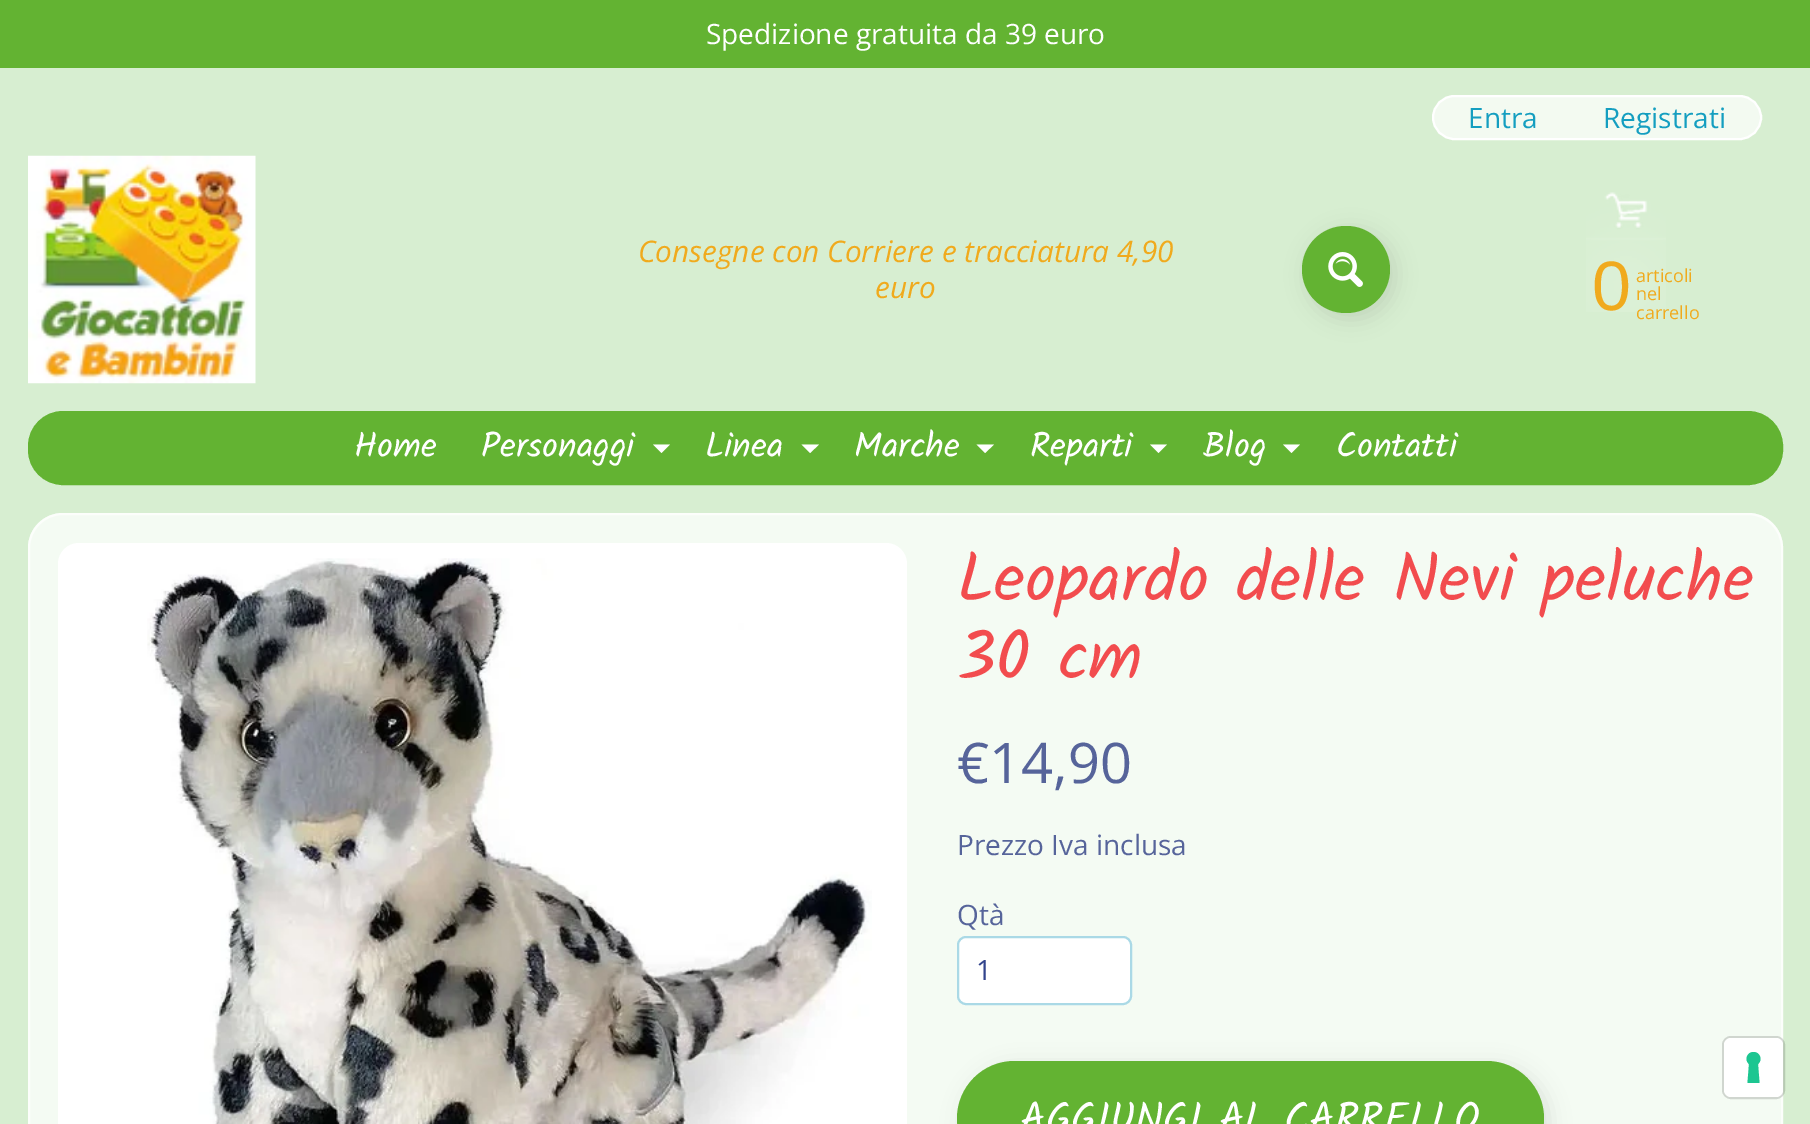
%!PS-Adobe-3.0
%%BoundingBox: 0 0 1810 1124
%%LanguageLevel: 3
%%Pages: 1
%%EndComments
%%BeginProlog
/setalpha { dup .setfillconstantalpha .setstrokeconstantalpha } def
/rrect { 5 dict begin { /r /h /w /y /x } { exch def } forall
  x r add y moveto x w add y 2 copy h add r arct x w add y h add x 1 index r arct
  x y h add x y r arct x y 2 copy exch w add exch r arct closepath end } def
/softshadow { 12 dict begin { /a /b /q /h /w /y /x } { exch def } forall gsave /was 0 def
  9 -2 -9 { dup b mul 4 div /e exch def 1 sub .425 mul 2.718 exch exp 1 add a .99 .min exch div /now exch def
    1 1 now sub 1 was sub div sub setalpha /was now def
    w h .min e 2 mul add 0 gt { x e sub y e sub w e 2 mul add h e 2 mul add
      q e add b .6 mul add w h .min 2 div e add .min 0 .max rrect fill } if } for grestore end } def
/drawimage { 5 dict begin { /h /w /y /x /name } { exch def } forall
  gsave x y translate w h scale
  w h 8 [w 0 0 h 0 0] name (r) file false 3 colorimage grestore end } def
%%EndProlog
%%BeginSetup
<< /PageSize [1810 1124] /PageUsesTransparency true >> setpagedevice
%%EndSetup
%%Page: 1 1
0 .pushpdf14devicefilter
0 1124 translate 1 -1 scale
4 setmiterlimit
0.843 0.933 0.82 setrgbcolor
0 0 1810 1124 rectfill
0.388 0.702 0.196 setrgbcolor
0 0 1810 68 rectfill
(images/1.raw) 28 155 228 229 drawimage
0.953 0.98 0.945 setrgbcolor
1433 96 328 43 21.5 rrect gsave fill grestore
1 setgray
2 setlinewidth
stroke
0 setgray
1307 231 88 88 44 10.5 0.1 softshadow
0.388 0.702 0.196 setrgbcolor
1302 226 88 87 43.5 rrect fill
(images/2.raw) 1328 252 35 35 drawimage
(images/3.raw) 1586 192 80 120 drawimage
29 412 1753 72 34 rrect gsave fill grestore
stroke
1 setgray
newpath 653 444.5 moveto 670 444.5 lineto 661.5 453 lineto closepath fill
newpath 801.5 444.5 moveto 819 444.5 lineto 810 453 lineto closepath fill
newpath 976.5 444.5 moveto 994 444.5 lineto 985 453 lineto closepath fill
newpath 1150 444.5 moveto 1167 444.5 lineto 1158.5 453 lineto closepath fill
newpath 1283 444.5 moveto 1300 444.5 lineto 1291.5 453 lineto closepath fill
0.957 0.984 0.953 setrgbcolor
28 513 1755 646 35 rrect fill
0.7 setalpha
1 setgray
29 514 1753 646 34 rrect stroke
1 setalpha
58 543 849 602 21 rrect fill
(images/4.raw) 147 558 725 566 drawimage
958 937 173 67 8 rrect gsave fill grestore
0.667 0.851 0.902 setrgbcolor
stroke
0 setgray
963 1066 586 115 57.5 10.5 0.1 softshadow
0.388 0.702 0.196 setrgbcolor
957 1061 587 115 57.5 rrect fill
0.15 setalpha
0 setgray
1723 1037 61 61 8 rrect stroke
1 setalpha
1 setgray
1724 1038 59 59 7 rrect fill
0.11 0.776 0.569 setrgbcolor
newpath 1753.5 1052 moveto 1760 1052 1763 1060 1758 1064 curveto 1759.5 1083 lineto 1747.5 1083 lineto 1749 1064 lineto 1744 1060 1747 1052 1753.5 1052 curveto closepath eofill
/OpenSans-Regular [28 0 0 -28 0 0] selectfont
1 setgray
706 44 moveto (Spedizione gratuita da 39 euro) show
/OpenSans-Italic [29.75 0 0 -29.75 0 0] selectfont
0.941 0.667 0.114 setrgbcolor
638 262 moveto (Consegne con Corriere e tracciatura 4,90) show
875 298 moveto (euro) show
/OpenSans-Regular [28 0 0 -28 0 0] selectfont
0.078 0.62 0.753 setrgbcolor
1468 128 moveto (Entra) show
1603 128 moveto (Registrati) show
/LiberationSans-Regular [70 0 0 -70 0 0] selectfont
0.941 0.667 0.114 setrgbcolor
1592 310 moveto (0) show
/OpenSans-Regular [18 0 0 -18 0 0] selectfont
1636 282 moveto (articoli) show
1636 300 moveto (nel) show
1636 319 moveto (carrello) show
/Kalam-Regular [35 0 0 -35 0 0] selectfont
1 setgray
354 457 moveto (Home) show
481 457 moveto (Personaggi) show
705 457 moveto (Linea) show
854 457 moveto (Marche) show
1030 457 moveto (Reparti) show
1203 457 moveto (Blog) show
1336 457 moveto (Contatti) show
/Kalam-Regular [68.4 0 0 -68.4 0 0] selectfont
0.949 0.298 0.306 setrgbcolor
957 601 moveto (Leopardo delle Nevi peluche) show
957 679 moveto (30 cm) show
/OpenSans-Regular [56 0 0 -56 0 0] selectfont
0.337 0.392 0.604 setrgbcolor
957 783 moveto (€14,90) show
/OpenSans-Regular [28 0 0 -28 0 0] selectfont
957 855 moveto (Prezzo Iva inclusa) show
957 925 moveto (Qtà) show
0.196 0.267 0.549 setrgbcolor
976 980 moveto (1) show
/Kalam-Regular [42 0 0 -42 0 0] selectfont
1 setgray
1020 1132 moveto (AGGIUNGI AL CARRELLO) show
.poppdf14devicefilter showpage
%%EOF
